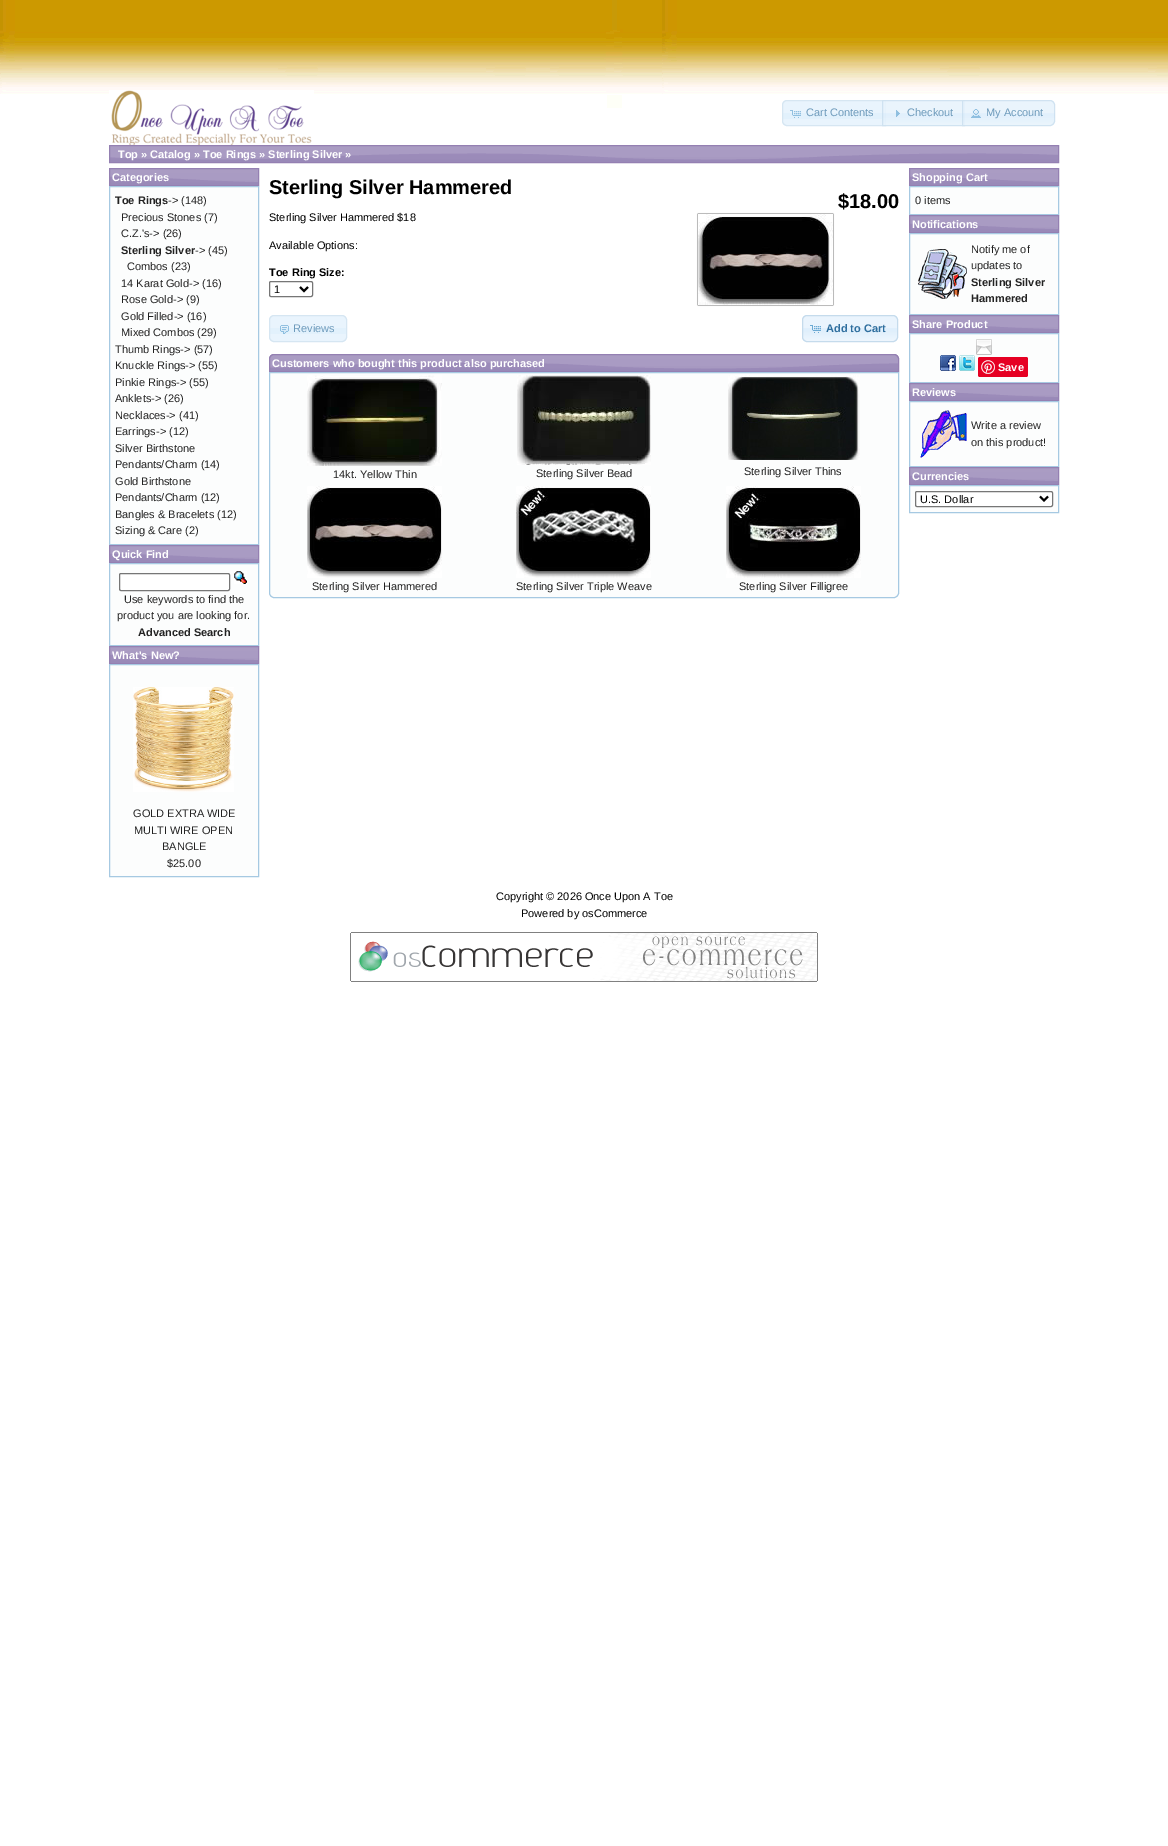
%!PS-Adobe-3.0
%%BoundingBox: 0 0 1168 1846
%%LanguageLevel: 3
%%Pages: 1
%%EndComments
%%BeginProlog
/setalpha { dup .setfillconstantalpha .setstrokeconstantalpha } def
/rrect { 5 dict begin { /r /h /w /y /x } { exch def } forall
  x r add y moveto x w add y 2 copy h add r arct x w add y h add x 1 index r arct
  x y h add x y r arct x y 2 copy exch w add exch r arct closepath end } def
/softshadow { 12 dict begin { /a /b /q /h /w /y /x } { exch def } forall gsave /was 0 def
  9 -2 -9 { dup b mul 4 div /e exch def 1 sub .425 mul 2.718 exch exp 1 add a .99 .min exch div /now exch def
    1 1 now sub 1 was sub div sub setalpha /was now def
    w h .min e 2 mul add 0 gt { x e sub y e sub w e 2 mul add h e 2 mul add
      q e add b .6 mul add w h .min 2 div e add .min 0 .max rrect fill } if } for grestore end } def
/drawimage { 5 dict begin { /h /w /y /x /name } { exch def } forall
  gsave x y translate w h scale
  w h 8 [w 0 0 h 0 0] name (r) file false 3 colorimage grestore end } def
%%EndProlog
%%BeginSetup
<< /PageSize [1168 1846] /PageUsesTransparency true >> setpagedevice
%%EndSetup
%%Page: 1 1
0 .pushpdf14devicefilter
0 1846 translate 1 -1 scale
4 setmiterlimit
1 setgray
0 0 1168 1846 rectfill
(images/1.raw) 0 0 1168 108 drawimage
(images/2.raw) 109 90 205 55 drawimage
0.914 0.957 0.992 setrgbcolor
newpath 787 100 moveto 886 100 lineto 886 126 lineto 787 126 lineto 784 126 782 124 782 121 curveto 782 105 lineto 782 102 784 100 787 100 curveto closepath fill
0.886 0.945 0.988 setrgbcolor
782 113 104 6 rectfill
0.839 0.902 0.949 setrgbcolor
newpath 787 100.5 moveto 885.5 100.5 lineto 885.5 125.5 lineto 787 125.5 lineto 784.5 125.5 782.5 123.5 782.5 121 curveto 782.5 105 lineto 782.5 102.5 784.5 100.5 787 100.5 curveto closepath stroke
(images/3.raw) 790 110 11 8 drawimage
(images/4.raw) 882 100 83 26 drawimage
0.7 setalpha
0.773 0.859 0.925 setrgbcolor
882.5 100.5 82 25 rectstroke
1 setalpha
(images/5.raw) 896 110 4 7 drawimage
0.7 setalpha
0.875 0.937 0.988 setrgbcolor
newpath 962 100 moveto 1050 100 lineto 1053 100 1055 102 1055 105 curveto 1055 121 lineto 1055 124 1053 126 1050 126 curveto 962 126 lineto closepath fill
1 setalpha
(images/6.raw) 962 100 93 26 drawimage
0.7 setalpha
0.773 0.859 0.925 setrgbcolor
newpath 962.5 100.5 moveto 1050 100.5 lineto 1052.5 100.5 1054.5 102.5 1054.5 105 curveto 1054.5 121 lineto 1054.5 123.5 1052.5 125.5 1050 125.5 curveto 962.5 125.5 lineto closepath stroke
1 setalpha
(images/7.raw) 971 109 10 9 drawimage
(images/8.raw) 110 146 948 16 drawimage
0.58 0.502 0.698 setrgbcolor
109.5 145.5 949 17 rectstroke
(images/9.raw) 110 169 148 16 drawimage
109.5 168.5 149 17 rectstroke
0.988 0.992 0.992 setrgbcolor
newpath 109.5 186.5 moveto 258.5 186.5 lineto 258.5 544.5 lineto 109.5 544.5 lineto closepath gsave fill grestore
0.651 0.788 0.886 setrgbcolor
stroke
(images/9.raw) 110 546 148 16 drawimage
0.58 0.502 0.698 setrgbcolor
109.5 545.5 149 17 rectstroke
0.988 0.992 0.992 setrgbcolor
newpath 109.5 563.5 moveto 258.5 563.5 lineto 258.5 645.5 lineto 109.5 645.5 lineto closepath gsave fill grestore
0.651 0.788 0.886 setrgbcolor
stroke
1 setgray
119.5 573.5 110 17 1.5 rrect gsave fill grestore
0.463 setgray
stroke
(images/10.raw) 234 571 13 13 drawimage
(images/9.raw) 110 647 148 16 drawimage
0.58 0.502 0.698 setrgbcolor
109.5 646.5 149 17 rectstroke
0.988 0.992 0.992 setrgbcolor
newpath 109.5 664.5 moveto 258.5 664.5 lineto 258.5 876.5 lineto 109.5 876.5 lineto closepath gsave fill grestore
0.651 0.788 0.886 setrgbcolor
stroke
(images/11.raw) 133 687 101 105 drawimage
0 setgray
698 214 135 91 0 0.5 1 softshadow
(images/12.raw) 698 214 135 91 drawimage
0.463 setgray
269.5 281.5 43 15 1.5 rrect stroke
0 setgray
2 setlinewidth
newpath 300 287 moveto 304 291 lineto 308 287 lineto stroke
0.914 0.957 0.992 setrgbcolor
269 315 78 27 5 rrect fill
0.886 0.945 0.988 setrgbcolor
269 328 78 6 rectfill
0.839 0.902 0.949 setrgbcolor
1 setlinewidth
269.5 315.5 77 26 4.5 rrect stroke
(images/13.raw) 280 325 9 9 drawimage
(images/14.raw) 802 315 96 27 drawimage
0.773 0.859 0.925 setrgbcolor
802.5 315.5 95 26 4.5 rrect stroke
(images/15.raw) 810 325 11 8 drawimage
(images/16.raw) 269 354 630 17 drawimage
0.58 0.502 0.698 setrgbcolor
newpath 274 354.5 moveto 894 354.5 lineto 896.5 354.5 898.5 356.5 898.5 359 curveto 898.5 371.5 lineto 269.5 371.5 lineto 269.5 359 lineto 269.5 356.5 271.5 354.5 274 354.5 curveto closepath stroke
0.988 0.992 0.992 setrgbcolor
newpath 269.5 372.5 moveto 898.5 372.5 lineto 898.5 593 lineto 898.5 595.5 896.5 597.5 894 597.5 curveto 274 597.5 lineto 271.5 597.5 269.5 595.5 269.5 593 curveto closepath gsave fill grestore
0.651 0.788 0.886 setrgbcolor
stroke
(images/17.raw) 307 375 135 91 drawimage
(images/18.raw) 517 375 134 90 drawimage
(images/19.raw) 728 375 132 85 drawimage
(images/20.raw) 307 486 135 92 drawimage
(images/21.raw) 516 486 135 92 drawimage
(images/22.raw) 726 486 135 92 drawimage
(images/9.raw) 910 169 148 16 drawimage
0.58 0.502 0.698 setrgbcolor
909.5 168.5 149 17 rectstroke
0.988 0.992 0.992 setrgbcolor
newpath 909.5 186.5 moveto 1058.5 186.5 lineto 1058.5 214.5 lineto 909.5 214.5 lineto closepath gsave fill grestore
0.651 0.788 0.886 setrgbcolor
stroke
(images/9.raw) 910 216 148 16 drawimage
0.58 0.502 0.698 setrgbcolor
909.5 215.5 149 17 rectstroke
0.988 0.992 0.992 setrgbcolor
newpath 909.5 233.5 moveto 1058.5 233.5 lineto 1058.5 314.5 lineto 909.5 314.5 lineto closepath gsave fill grestore
0.651 0.788 0.886 setrgbcolor
stroke
(images/23.raw) 918 249 49 50 drawimage
(images/9.raw) 910 316 148 16 drawimage
0.58 0.502 0.698 setrgbcolor
909.5 315.5 149 17 rectstroke
0.988 0.992 0.992 setrgbcolor
newpath 909.5 333.5 moveto 1058.5 333.5 lineto 1058.5 382.5 lineto 909.5 382.5 lineto closepath gsave fill grestore
0.651 0.788 0.886 setrgbcolor
stroke
(images/24.raw) 976 339 16 16 drawimage
(images/25.raw) 940 355 16 16 drawimage
(images/26.raw) 959 355 16 16 drawimage
0.902 0 0.137 setrgbcolor
978 357 50 20 2 rrect fill
(images/27.raw) 981 360 14 14 drawimage
(images/9.raw) 910 384 148 16 drawimage
0.58 0.502 0.698 setrgbcolor
909.5 383.5 149 17 rectstroke
0.988 0.992 0.992 setrgbcolor
newpath 909.5 401.5 moveto 1058.5 401.5 lineto 1058.5 466.5 lineto 909.5 466.5 lineto closepath gsave fill grestore
0.651 0.788 0.886 setrgbcolor
stroke
(images/28.raw) 920 410 47 48 drawimage
(images/9.raw) 910 468 148 16 drawimage
0.58 0.502 0.698 setrgbcolor
909.5 467.5 149 17 rectstroke
0.988 0.992 0.992 setrgbcolor
newpath 909.5 485.5 moveto 1058.5 485.5 lineto 1058.5 512.5 lineto 909.5 512.5 lineto closepath gsave fill grestore
0.651 0.788 0.886 setrgbcolor
stroke
1 setgray
915.5 491.5 137 15 1.5 rrect gsave fill grestore
0.463 setgray
stroke
0 setgray
2 setlinewidth
newpath 1040 496.5 moveto 1044 500.5 lineto 1048 496.5 lineto stroke
(images/29.raw) 350 932 468 50 drawimage
/LiberationSans-Regular [11 0 0 -11 0 0] selectfont
0.427 0.604 0.733 setrgbcolor
806 116 moveto (Cart Contents) show
907 116 moveto (Checkout) show
986 116 moveto (My Account) show
/LiberationSans-Bold [11 0 0 -11 0 0] selectfont
1 setgray
118 158 moveto (Top » Catalog » Toe Rings » Sterling Silver ») show
112 181 moveto (Categories) show
0.133 setgray
115 204 moveto (Toe Rings) show
/LiberationSans-Regular [11 0 0 -11 0 0] selectfont
168 204 moveto (-> \(148\)) show
121 221 moveto (Precious Stones \(7\)) show
121 237 moveto (C.Z.'s-> \(26\)) show
/LiberationSans-Bold [11 0 0 -11 0 0] selectfont
121 254 moveto (Sterling Silver) show
/LiberationSans-Regular [11 0 0 -11 0 0] selectfont
195 254 moveto (-> \(45\)) show
127 270 moveto (Combos \(23\)) show
121 287 moveto (14 Karat Gold-> \(16\)) show
121 303 moveto (Rose Gold-> \(9\)) show
121 320 moveto (Gold Filled-> \(16\)) show
121 336 moveto (Mixed Combos \(29\)) show
115 353 moveto (Thumb Rings-> \(57\)) show
115 369 moveto (Knuckle Rings-> \(55\)) show
115 386 moveto (Pinkie Rings-> \(55\)) show
115 402 moveto (Anklets-> \(26\)) show
115 419 moveto (Necklaces-> \(41\)) show
115 435 moveto (Earrings-> \(12\)) show
115 452 moveto (Silver Birthstone) show
115 468 moveto (Pendants/Charm \(14\)) show
115 485 moveto (Gold Birthstone) show
115 501 moveto (Pendants/Charm \(12\)) show
115 518 moveto (Bangles & Bracelets \(12\)) show
115 534 moveto (Sizing & Care \(2\)) show
/LiberationSans-Bold [11 0 0 -11 0 0] selectfont
1 setgray
112 558 moveto (Quick Find) show
/LiberationSans-Regular [11 0 0 -11 0 0] selectfont
0.133 setgray
124 603 moveto (Use keywords to find the) show
117 619 moveto (product you are looking for.) show
/LiberationSans-Bold [11 0 0 -11 0 0] selectfont
138 636 moveto (Advanced Search) show
1 setgray
112 659 moveto (What's New?) show
/LiberationSans-Regular [11 0 0 -11 0 0] selectfont
0.133 setgray
133 817 moveto (GOLD EXTRA WIDE) show
134 834 moveto (MULTI WIRE OPEN) show
162 850 moveto (BANGLE) show
167 867 moveto ($25.00) show
/LiberationSans-Bold [20 0 0 -20 0 0] selectfont
0 setgray
269 194 moveto (Sterling Silver Hammered) show
838 208 moveto ($18.00) show
/LiberationSans-Regular [11 0 0 -11 0 0] selectfont
269 221 moveto (Sterling Silver Hammered $18) show
269 249 moveto (Available Options:) show
/LiberationSans-Bold [11 0 0 -11 0 0] selectfont
269 276 moveto (Toe Ring Size:) show
/LiberationSans-Regular [11 0 0 -11 0 0] selectfont
274 293 moveto (1) show
0.427 0.604 0.733 setrgbcolor
293 332 moveto (Reviews) show
/LiberationSans-Bold [11 0 0 -11 0 0] selectfont
0.18 0.431 0.62 setrgbcolor
826 332 moveto (Add to Cart) show
1 setgray
272 367 moveto (Customers who bought this product also purchased) show
/LiberationSans-Regular [11 0 0 -11 0 0] selectfont
0.133 setgray
333 478 moveto (14kt. Yellow Thin) show
536 477 moveto (Sterling Silver Bead) show
744 475 moveto (Sterling Silver Thins) show
312 590 moveto (Sterling Silver Hammered) show
516 590 moveto (Sterling Silver Triple Weave) show
739 590 moveto (Sterling Silver Filligree) show
/LiberationSans-Bold [11 0 0 -11 0 0] selectfont
1 setgray
912 181 moveto (Shopping Cart) show
/LiberationSans-Regular [11 0 0 -11 0 0] selectfont
0.133 setgray
915 204 moveto (0 items) show
/LiberationSans-Bold [11 0 0 -11 0 0] selectfont
1 setgray
912 228 moveto (Notifications) show
/LiberationSans-Regular [11 0 0 -11 0 0] selectfont
0.133 setgray
971 253 moveto (Notify me of) show
971 269 moveto (updates to) show
/LiberationSans-Bold [11 0 0 -11 0 0] selectfont
971 286 moveto (Sterling Silver) show
971 302 moveto (Hammered) show
1 setgray
912 328 moveto (Share Product) show
998 371 moveto (Save) show
912 396 moveto (Reviews) show
/LiberationSans-Regular [11 0 0 -11 0 0] selectfont
0.133 setgray
971 429 moveto (Write a review) show
971 446 moveto (on this product!) show
/LiberationSans-Bold [11 0 0 -11 0 0] selectfont
1 setgray
912 480 moveto (Currencies) show
/LiberationSans-Regular [11 0 0 -11 0 0] selectfont
0 setgray
920 503 moveto (U.S. Dollar) show
496 900 moveto (Copyright © 2026 Once Upon A Toe) show
521 917 moveto (Powered by osCommerce) show
.poppdf14devicefilter showpage
%%EOF
